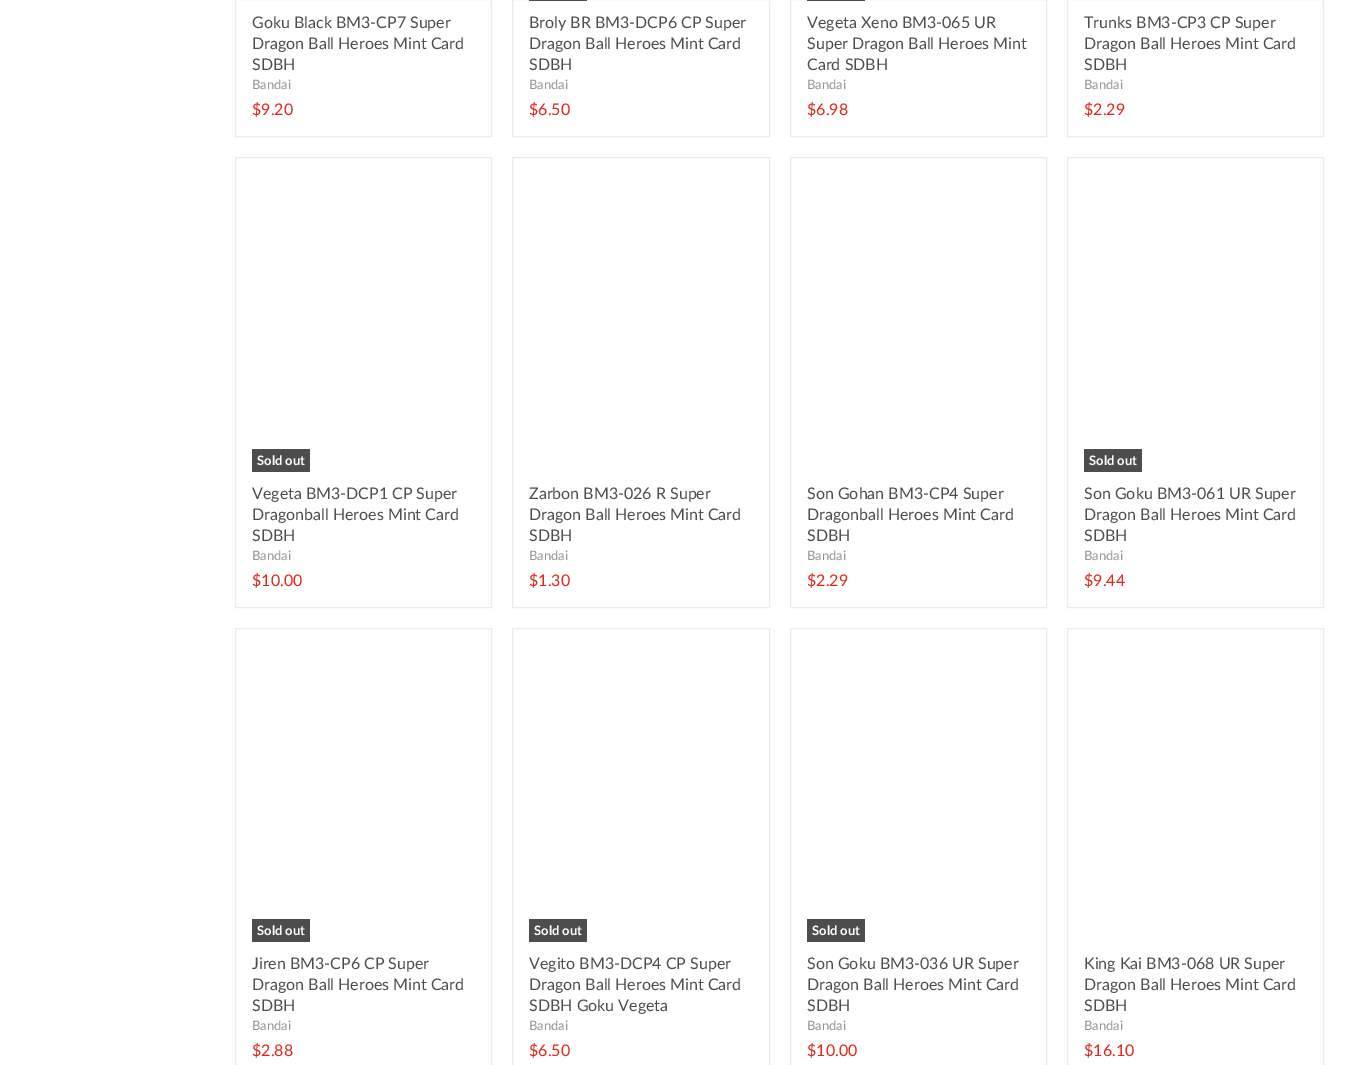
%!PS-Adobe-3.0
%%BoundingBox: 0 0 1349 1065
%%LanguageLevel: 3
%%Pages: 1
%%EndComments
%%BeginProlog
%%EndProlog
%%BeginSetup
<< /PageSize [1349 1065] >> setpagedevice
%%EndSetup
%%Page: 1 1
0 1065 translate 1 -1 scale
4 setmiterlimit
1 setgray
0 0 1349 1065 rectfill
0.922 setgray
235.5 -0.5 256 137 rectstroke
512.5 -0.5 257 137 rectstroke
0.302 setgray
529 0 58 1 rectfill
0.922 setgray
790.5 -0.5 256 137 rectstroke
0.302 setgray
807 0 58 1 rectfill
0.922 setgray
1067.5 -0.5 256 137 rectstroke
235.5 157.5 256 450 rectstroke
0.302 setgray
252 449 58 23 rectfill
0.922 setgray
512.5 157.5 257 450 rectstroke
790.5 157.5 256 450 rectstroke
1067.5 157.5 256 450 rectstroke
0.302 setgray
1084 449 58 23 rectfill
0.922 setgray
235.5 628.5 256 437 rectstroke
0.302 setgray
252 919 58 23 rectfill
0.922 setgray
512.5 628.5 257 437 rectstroke
0.302 setgray
529 919 58 23 rectfill
0.922 setgray
790.5 628.5 256 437 rectstroke
0.302 setgray
807 919 58 23 rectfill
0.922 setgray
1067.5 628.5 256 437 rectstroke
/Lato-Regular [16 0 0 -16 0 0] selectfont
0.302 setgray
252 28 moveto (Goku Black BM3-CP7 Super) show
252 49 moveto (Dragon Ball Heroes Mint Card) show
252 70 moveto (SDBH) show
/Lato-Regular [13 0 0 -13 0 0] selectfont
0.58 setgray
252 89 moveto (Bandai) show
/Lato-Regular [16 0 0 -16 0 0] selectfont
0.89 0.149 0.098 setrgbcolor
252 115 moveto ($9.20) show
0.302 setgray
529 28 moveto (Broly BR BM3-DCP6 CP Super) show
529 49 moveto (Dragon Ball Heroes Mint Card) show
529 70 moveto (SDBH) show
/Lato-Regular [13 0 0 -13 0 0] selectfont
0.58 setgray
529 89 moveto (Bandai) show
/Lato-Regular [16 0 0 -16 0 0] selectfont
0.89 0.149 0.098 setrgbcolor
529 115 moveto ($6.50) show
0.302 setgray
807 28 moveto (Vegeta Xeno BM3-065 UR) show
807 49 moveto (Super Dragon Ball Heroes Mint) show
807 70 moveto (Card SDBH) show
/Lato-Regular [13 0 0 -13 0 0] selectfont
0.58 setgray
807 89 moveto (Bandai) show
/Lato-Regular [16 0 0 -16 0 0] selectfont
0.89 0.149 0.098 setrgbcolor
807 115 moveto ($6.98) show
0.302 setgray
1084 28 moveto (Trunks BM3-CP3 CP Super) show
1084 49 moveto (Dragon Ball Heroes Mint Card) show
1084 70 moveto (SDBH) show
/Lato-Regular [13 0 0 -13 0 0] selectfont
0.58 setgray
1084 89 moveto (Bandai) show
/Lato-Regular [16 0 0 -16 0 0] selectfont
0.89 0.149 0.098 setrgbcolor
1084 115 moveto ($2.29) show
/Lato-Bold [13 0 0 -13 0 0] selectfont
1 setgray
257 465 moveto (Sold out) show
/Lato-Regular [16 0 0 -16 0 0] selectfont
0.302 setgray
252 499 moveto (Vegeta BM3-DCP1 CP Super) show
252 520 moveto (Dragonball Heroes Mint Card) show
252 541 moveto (SDBH) show
/Lato-Regular [13 0 0 -13 0 0] selectfont
0.58 setgray
252 560 moveto (Bandai) show
/Lato-Regular [16 0 0 -16 0 0] selectfont
0.89 0.149 0.098 setrgbcolor
252 586 moveto ($10.00) show
0.302 setgray
529 499 moveto (Zarbon BM3-026 R Super) show
529 520 moveto (Dragon Ball Heroes Mint Card) show
529 541 moveto (SDBH) show
/Lato-Regular [13 0 0 -13 0 0] selectfont
0.58 setgray
529 560 moveto (Bandai) show
/Lato-Regular [16 0 0 -16 0 0] selectfont
0.89 0.149 0.098 setrgbcolor
529 586 moveto ($1.30) show
0.302 setgray
807 499 moveto (Son Gohan BM3-CP4 Super) show
807 520 moveto (Dragonball Heroes Mint Card) show
807 541 moveto (SDBH) show
/Lato-Regular [13 0 0 -13 0 0] selectfont
0.58 setgray
807 560 moveto (Bandai) show
/Lato-Regular [16 0 0 -16 0 0] selectfont
0.89 0.149 0.098 setrgbcolor
807 586 moveto ($2.29) show
/Lato-Bold [13 0 0 -13 0 0] selectfont
1 setgray
1089 465 moveto (Sold out) show
/Lato-Regular [16 0 0 -16 0 0] selectfont
0.302 setgray
1084 499 moveto (Son Goku BM3-061 UR Super) show
1084 520 moveto (Dragon Ball Heroes Mint Card) show
1084 541 moveto (SDBH) show
/Lato-Regular [13 0 0 -13 0 0] selectfont
0.58 setgray
1084 560 moveto (Bandai) show
/Lato-Regular [16 0 0 -16 0 0] selectfont
0.89 0.149 0.098 setrgbcolor
1084 586 moveto ($9.44) show
/Lato-Bold [13 0 0 -13 0 0] selectfont
1 setgray
257 935 moveto (Sold out) show
/Lato-Regular [16 0 0 -16 0 0] selectfont
0.302 setgray
252 969 moveto (Jiren BM3-CP6 CP Super) show
252 990 moveto (Dragon Ball Heroes Mint Card) show
252 1011 moveto (SDBH) show
/Lato-Regular [13 0 0 -13 0 0] selectfont
0.58 setgray
252 1030 moveto (Bandai) show
/Lato-Regular [16 0 0 -16 0 0] selectfont
0.89 0.149 0.098 setrgbcolor
252 1056 moveto ($2.88) show
/Lato-Bold [13 0 0 -13 0 0] selectfont
1 setgray
534 935 moveto (Sold out) show
/Lato-Regular [16 0 0 -16 0 0] selectfont
0.302 setgray
529 969 moveto (Vegito BM3-DCP4 CP Super) show
529 990 moveto (Dragon Ball Heroes Mint Card) show
529 1011 moveto (SDBH Goku Vegeta) show
/Lato-Regular [13 0 0 -13 0 0] selectfont
0.58 setgray
529 1030 moveto (Bandai) show
/Lato-Regular [16 0 0 -16 0 0] selectfont
0.89 0.149 0.098 setrgbcolor
529 1056 moveto ($6.50) show
/Lato-Bold [13 0 0 -13 0 0] selectfont
1 setgray
812 935 moveto (Sold out) show
/Lato-Regular [16 0 0 -16 0 0] selectfont
0.302 setgray
807 969 moveto (Son Goku BM3-036 UR Super) show
807 990 moveto (Dragon Ball Heroes Mint Card) show
807 1011 moveto (SDBH) show
/Lato-Regular [13 0 0 -13 0 0] selectfont
0.58 setgray
807 1030 moveto (Bandai) show
/Lato-Regular [16 0 0 -16 0 0] selectfont
0.89 0.149 0.098 setrgbcolor
807 1056 moveto ($10.00) show
0.302 setgray
1084 969 moveto (King Kai BM3-068 UR Super) show
1084 990 moveto (Dragon Ball Heroes Mint Card) show
1084 1011 moveto (SDBH) show
/Lato-Regular [13 0 0 -13 0 0] selectfont
0.58 setgray
1084 1030 moveto (Bandai) show
/Lato-Regular [16 0 0 -16 0 0] selectfont
0.89 0.149 0.098 setrgbcolor
1084 1056 moveto ($16.10) show
showpage
%%EOF
